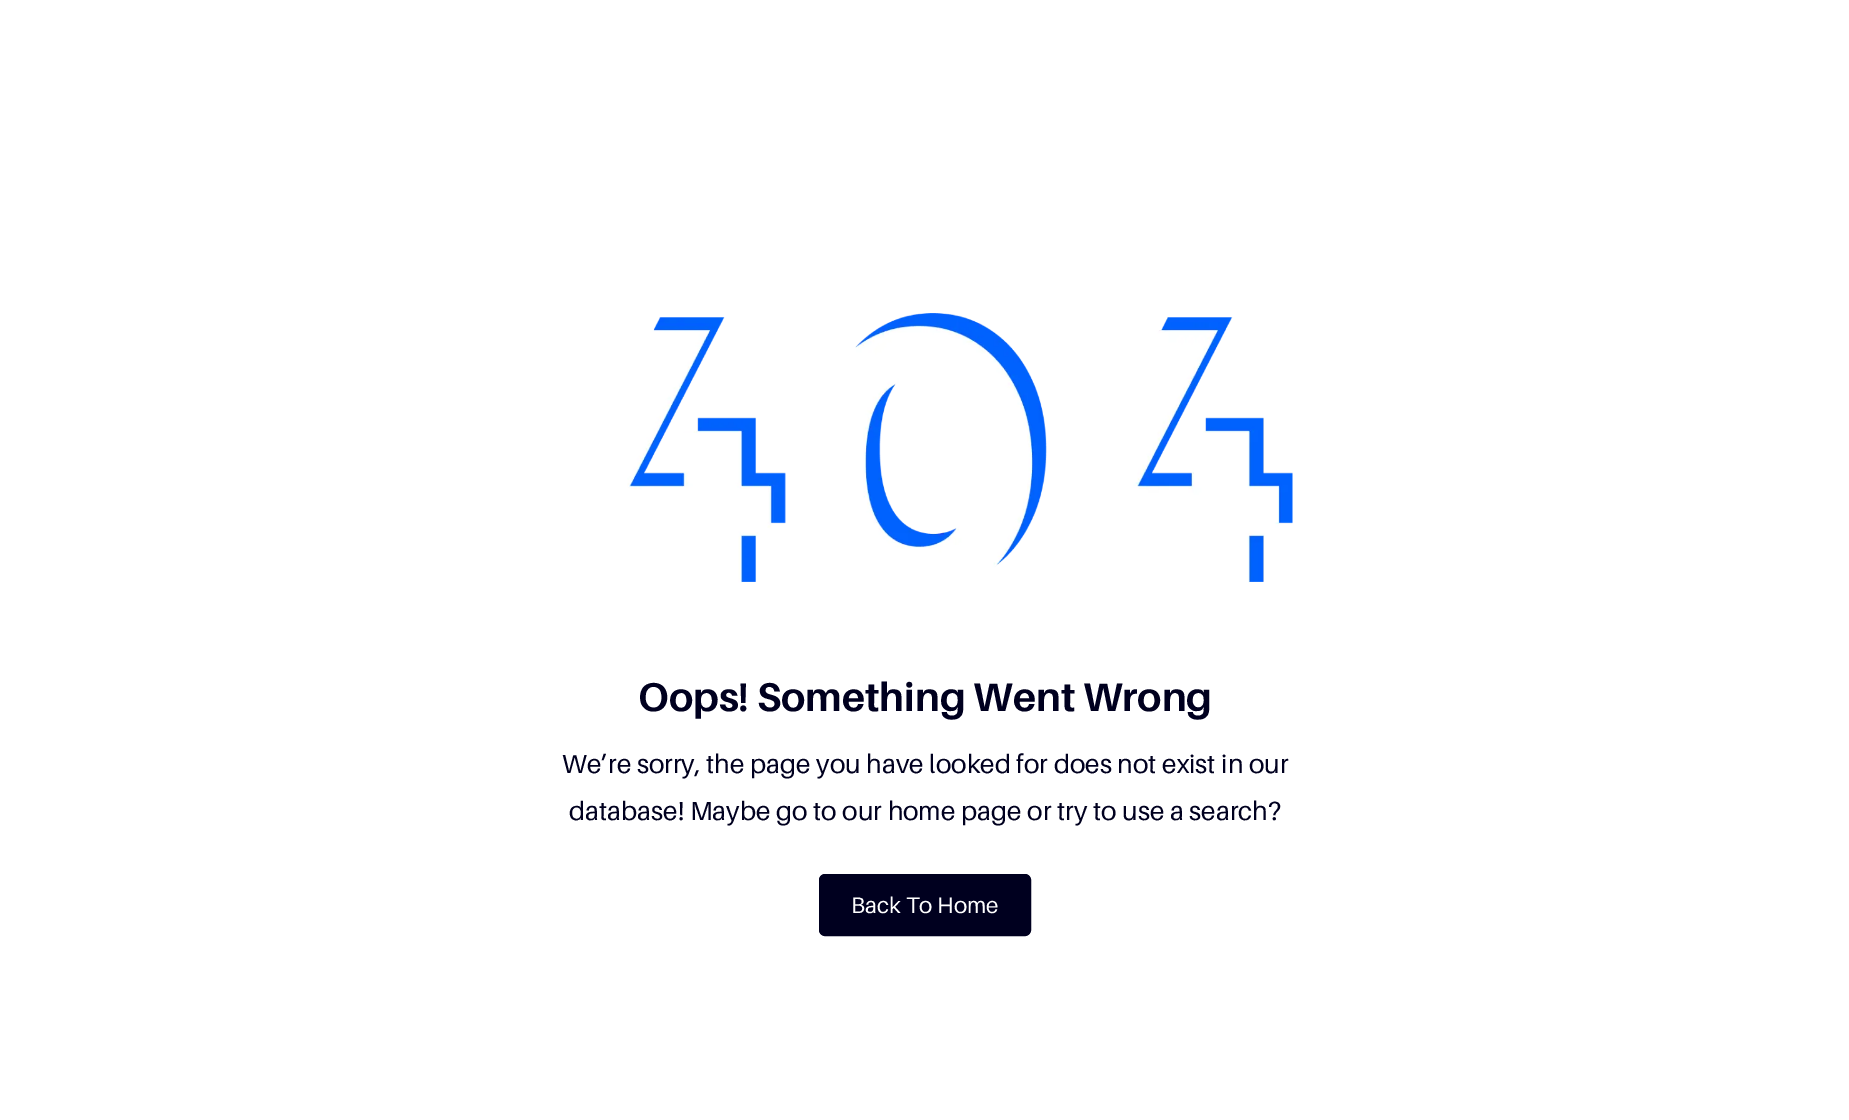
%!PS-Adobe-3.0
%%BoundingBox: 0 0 1849 1120
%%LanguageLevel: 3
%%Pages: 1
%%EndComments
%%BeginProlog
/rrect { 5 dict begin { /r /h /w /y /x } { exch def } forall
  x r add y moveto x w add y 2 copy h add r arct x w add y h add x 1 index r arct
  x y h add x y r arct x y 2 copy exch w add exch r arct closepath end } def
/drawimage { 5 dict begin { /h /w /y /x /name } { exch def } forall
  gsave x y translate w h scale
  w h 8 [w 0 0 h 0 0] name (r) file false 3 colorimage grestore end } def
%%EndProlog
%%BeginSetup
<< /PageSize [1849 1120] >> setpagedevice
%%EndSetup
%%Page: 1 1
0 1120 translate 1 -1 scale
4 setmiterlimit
1 setgray
0 0 1849 1120 rectfill
(images/1.raw) 627 313 666 270 drawimage
0 0 0.122 setrgbcolor
819.5 874.5 211 61 5.5 rrect gsave fill grestore
stroke
/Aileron-Bold [40 0 0 -40 0 0] selectfont
638 711 moveto (Oops! Something Went Wrong) show
/Aileron-Regular [26.25 0 0 -26.25 0 0] selectfont
562 773 moveto (We’re sorry, the page you have looked for does not exist in our) show
569 820 moveto (database! Maybe go to our home page or try to use a search?) show
/Aileron-Regular [22.5 0 0 -22.5 0 0] selectfont
1 setgray
851 913 moveto (Back To Home) show
showpage
%%EOF
